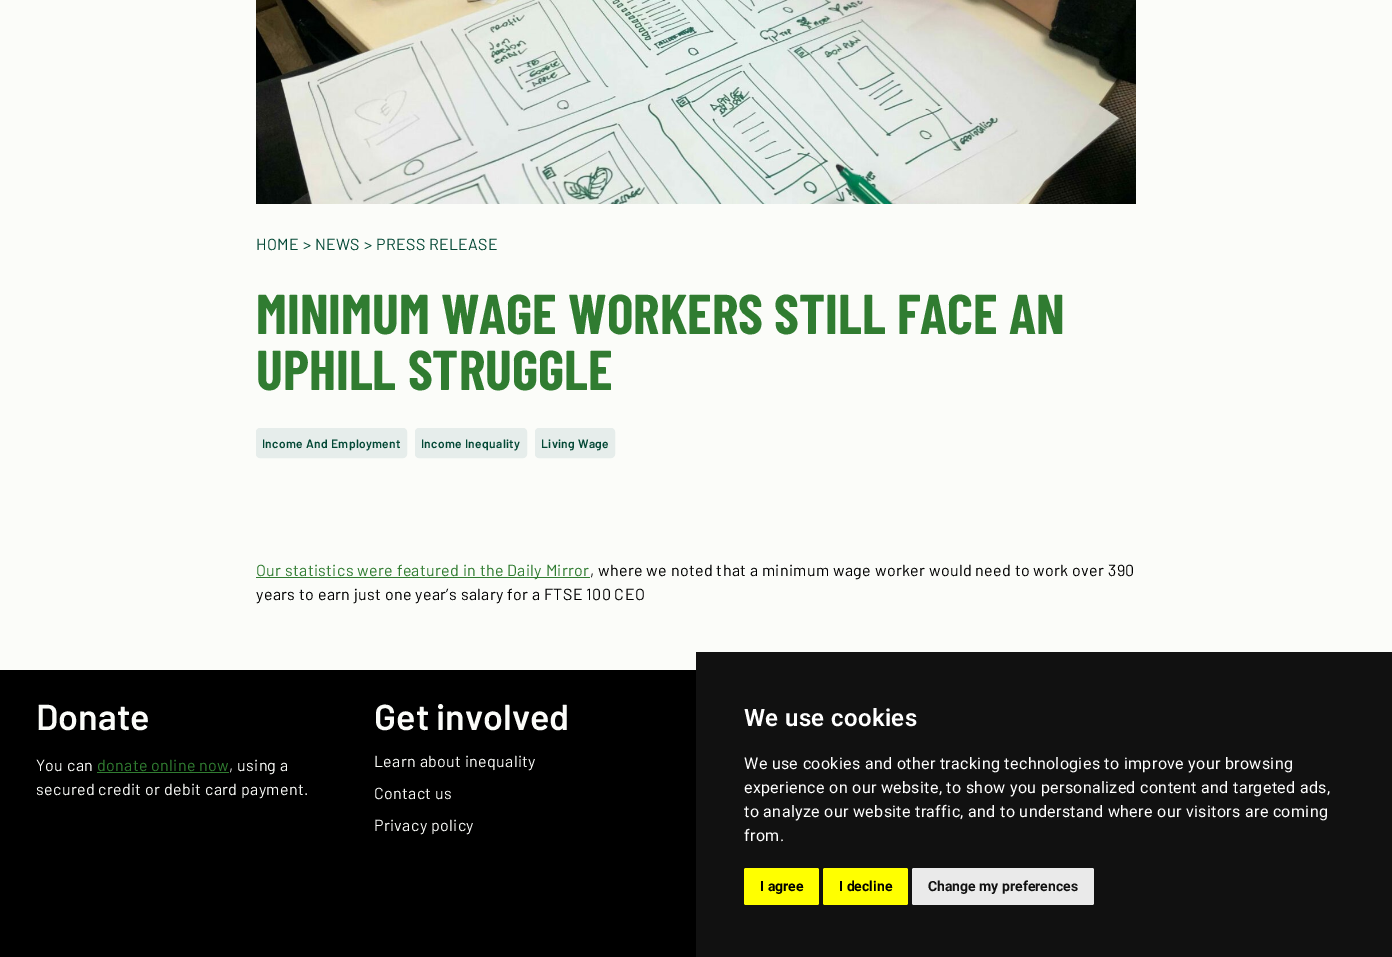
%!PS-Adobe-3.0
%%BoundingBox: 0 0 1392 957
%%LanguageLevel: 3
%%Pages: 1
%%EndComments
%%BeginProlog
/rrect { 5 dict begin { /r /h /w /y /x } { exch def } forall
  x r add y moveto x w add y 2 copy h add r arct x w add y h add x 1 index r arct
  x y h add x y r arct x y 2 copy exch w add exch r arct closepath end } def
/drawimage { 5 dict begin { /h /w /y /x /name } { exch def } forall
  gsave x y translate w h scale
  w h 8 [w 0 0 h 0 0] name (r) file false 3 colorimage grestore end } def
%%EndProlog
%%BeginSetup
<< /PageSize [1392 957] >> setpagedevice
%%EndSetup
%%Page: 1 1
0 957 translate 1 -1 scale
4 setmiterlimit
0.984 0.988 0.976 setrgbcolor
0 0 1392 957 rectfill
(images/1.raw) 256 0 880 204 drawimage
0.902 0.929 0.922 setrgbcolor
257 429 149 28 3 rrect gsave fill grestore
2 setlinewidth
stroke
416 429 110 28 3 rrect gsave fill grestore
stroke
536 429 78 28 3 rrect gsave fill grestore
stroke
0.188 0.486 0.192 setrgbcolor
256 577 334 1 rectfill
0 setgray
0 670 696 287 rectfill
0.188 0.486 0.192 setrgbcolor
97 772 132 1 rectfill
0.067 setgray
696 652 696 305 rectfill
1 1 0 setrgbcolor
744 868 75 37 2 rrect fill
823 868 85 37 2 rrect fill
0.918 setgray
912 868 182 37 2 rrect fill
/Barlow-Regular [16 0 0 -16 0 0] selectfont
0.012 0.282 0.208 setrgbcolor
256 250 moveto 0.35 0 (HOME) ashow
303 250 moveto 0.35 0 (> NEWS) ashow
364 250 moveto 0.35 0 (> PRESS RELEASE) ashow
/BarlowCondensed-Bold [56 0 0 -56 0 0] selectfont
0.188 0.486 0.192 setrgbcolor
256 334 moveto (MINIMUM WAGE WORKERS STILL FACE AN) show
256 390 moveto (UPHILL STRUGGLE) show
/Barlow-SemiBold [12 0 0 -12 0 0] selectfont
0.012 0.282 0.208 setrgbcolor
262 448 moveto 0.35 0 (Income And Employment) ashow
421 448 moveto 0.35 0 (Income Inequality) ashow
541 448 moveto 0.35 0 (Living Wage) ashow
/Barlow-Regular [16 0 0 -16 0 0] selectfont
0.188 0.486 0.192 setrgbcolor
256 576 moveto 0.35 0 (Our statistics were featured in the Daily Mirror) ashow
0 setgray
590 576 moveto 0.35 0 (, where we noted that a minimum wage worker would need to work over 390) ashow
256 600 moveto 0.35 0 (years to earn just one year’s salary for a FTSE 100 CEO) ashow
/Barlow-SemiBold [36 0 0 -36 0 0] selectfont
0.984 0.988 0.976 setrgbcolor
36 730 moveto (Donate) show
/Barlow-Regular [16 0 0 -16 0 0] selectfont
36 771 moveto 0.35 0 (You can) ashow
0.188 0.486 0.192 setrgbcolor
97 771 moveto 0.35 0 (donate online now) ashow
0.984 0.988 0.976 setrgbcolor
229 771 moveto 0.35 0 (, using a) ashow
36 795 moveto 0.35 0 (secured credit or debit card payment.) ashow
/Barlow-SemiBold [36 0 0 -36 0 0] selectfont
374 730 moveto (Get involved) show
/Barlow-Regular [16 0 0 -16 0 0] selectfont
374 767 moveto 0.35 0 (Learn about inequality) ashow
374 799 moveto 0.35 0 (Contact us) ashow
374 831 moveto 0.35 0 (Privacy policy) ashow
/Roboto-SemiBold [24 0 0 -24 0 0] selectfont
1 setgray
744 726 moveto 0.35 0 (We use cookies) ashow
/Roboto-Regular [16 0 0 -16 0 0] selectfont
744 769 moveto 0.35 0 (We use cookies and other tracking technologies to improve your browsing) ashow
744 793 moveto 0.35 0 (experience on our website, to show you personalized content and targeted ads,) ashow
744 817 moveto 0.35 0 (to analyze our website traffic, and to understand where our visitors are coming) ashow
744 841 moveto 0.35 0 (from.) ashow
/Roboto-Bold [14 0 0 -14 0 0] selectfont
0 setgray
760 891 moveto (I agree) show
839 891 moveto (I decline) show
0.067 setgray
928 891 moveto (Change my preferences) show
showpage
%%EOF
